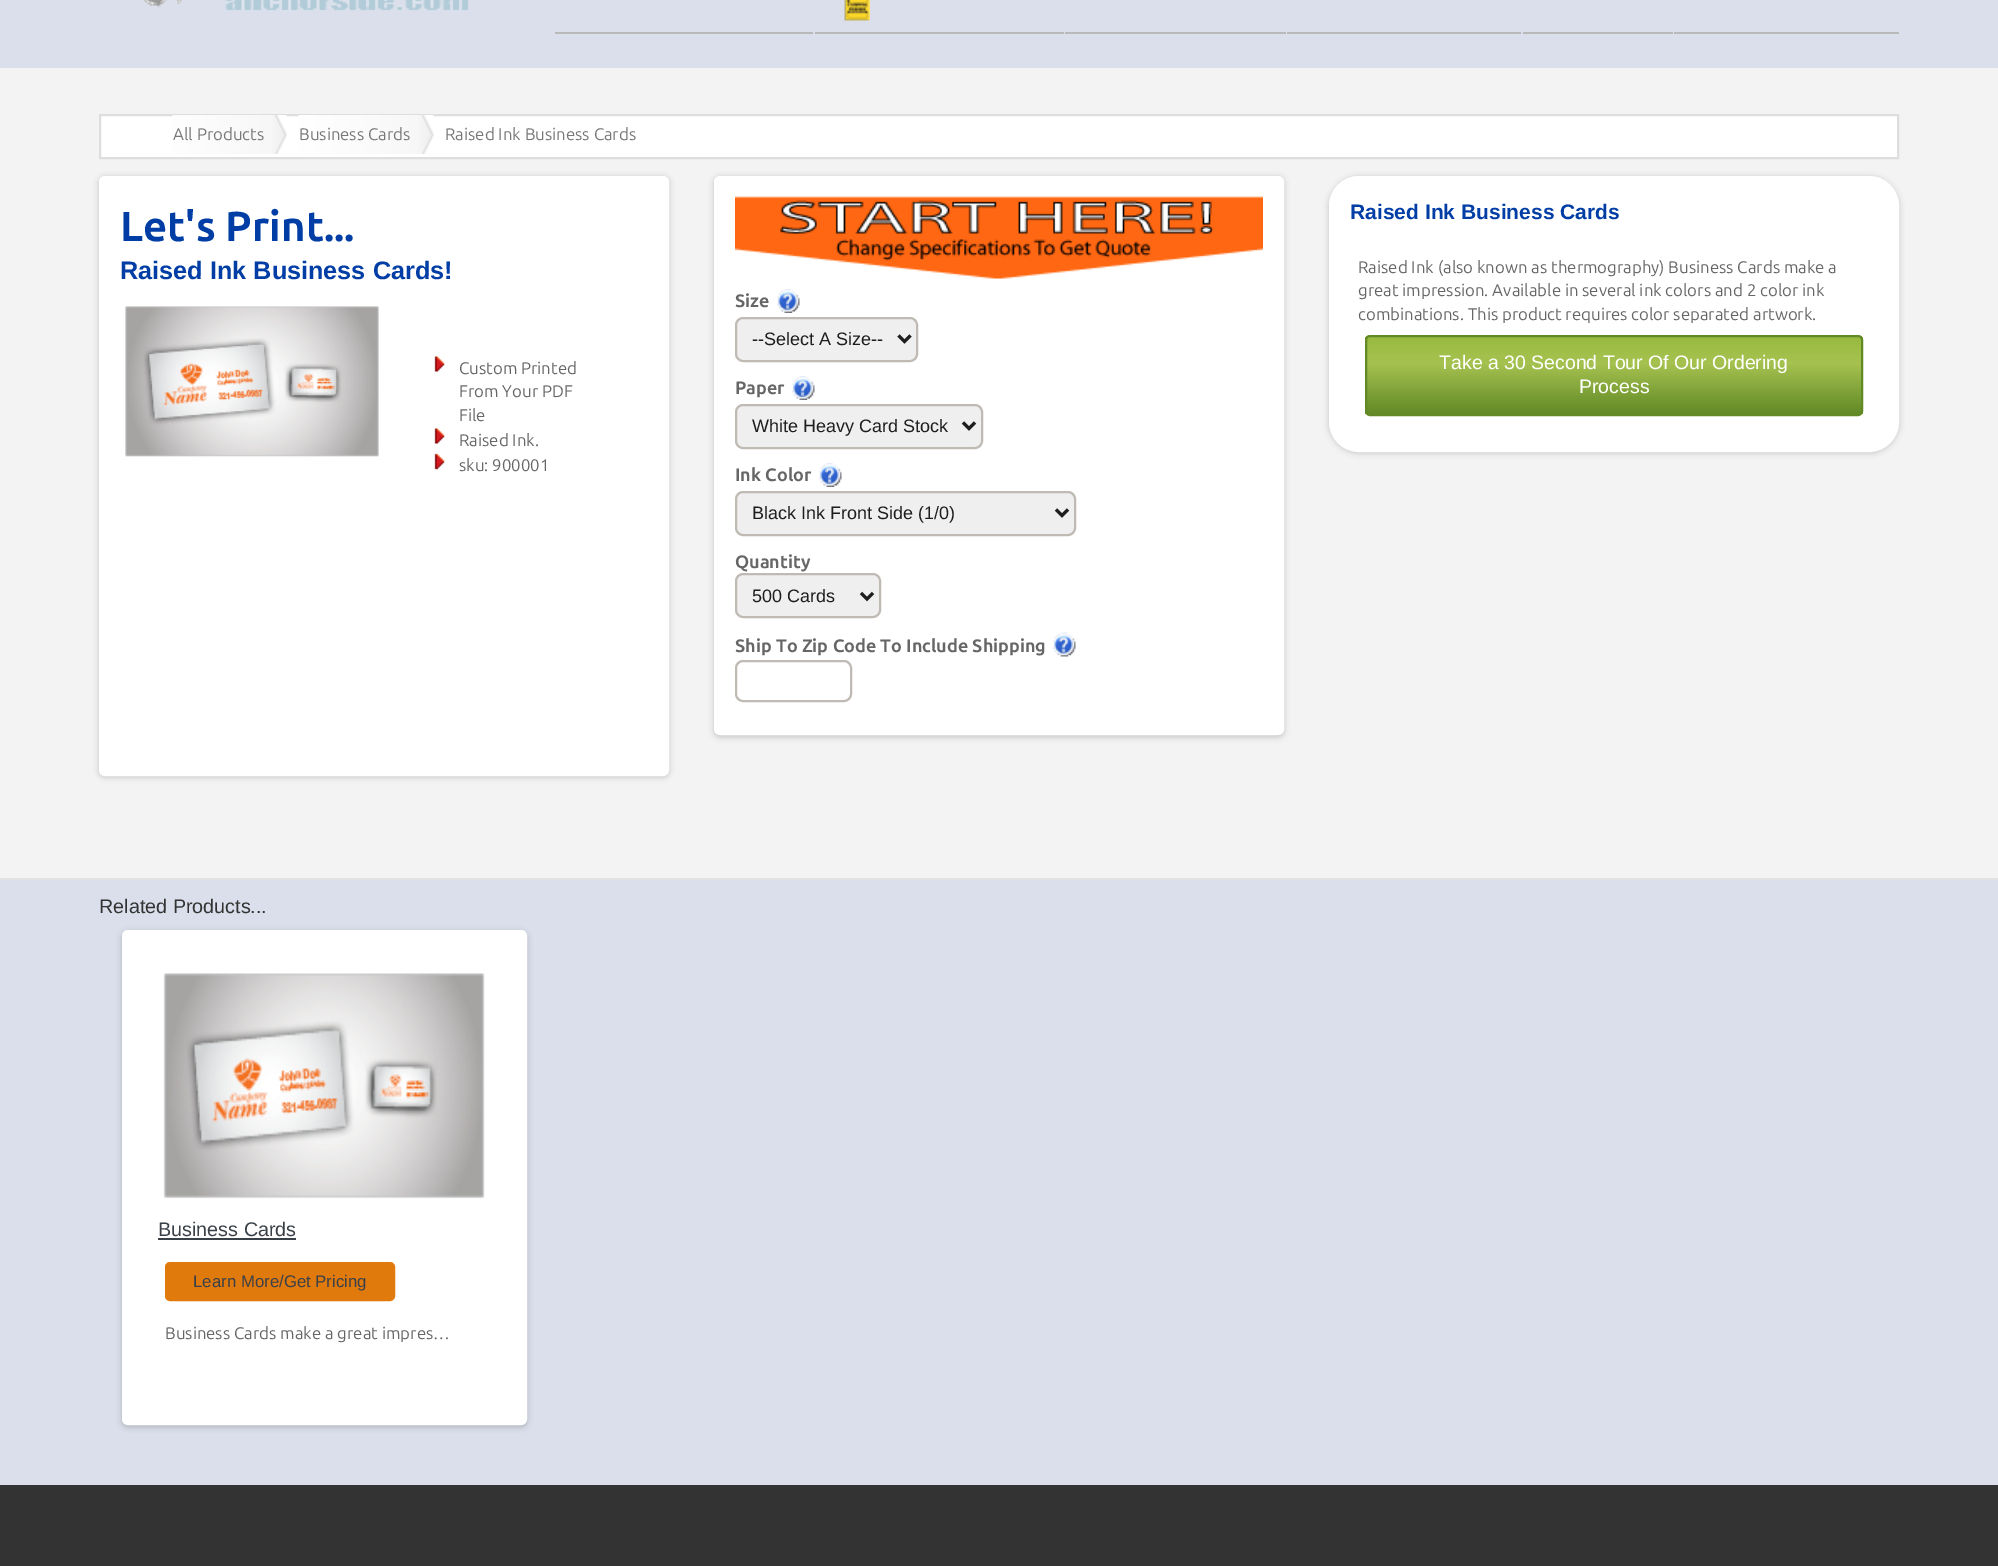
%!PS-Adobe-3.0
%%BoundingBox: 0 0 1998 1566
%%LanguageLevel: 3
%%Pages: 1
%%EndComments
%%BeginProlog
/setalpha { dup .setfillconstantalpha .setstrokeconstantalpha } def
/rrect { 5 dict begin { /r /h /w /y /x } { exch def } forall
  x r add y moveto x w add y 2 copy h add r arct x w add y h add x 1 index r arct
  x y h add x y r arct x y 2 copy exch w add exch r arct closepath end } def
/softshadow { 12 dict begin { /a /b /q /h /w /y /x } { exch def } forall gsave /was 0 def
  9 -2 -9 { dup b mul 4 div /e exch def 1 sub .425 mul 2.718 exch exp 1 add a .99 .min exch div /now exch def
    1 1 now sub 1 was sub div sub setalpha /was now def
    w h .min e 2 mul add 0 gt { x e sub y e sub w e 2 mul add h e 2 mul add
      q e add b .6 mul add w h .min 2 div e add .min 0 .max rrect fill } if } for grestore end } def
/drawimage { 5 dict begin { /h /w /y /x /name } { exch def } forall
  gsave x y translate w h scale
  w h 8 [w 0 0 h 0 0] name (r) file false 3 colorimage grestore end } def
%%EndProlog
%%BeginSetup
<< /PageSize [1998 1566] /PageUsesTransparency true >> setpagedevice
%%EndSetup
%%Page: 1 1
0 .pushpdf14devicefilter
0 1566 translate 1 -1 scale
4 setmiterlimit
0.855 0.875 0.922 setrgbcolor
0 0 1998 1566 rectfill
(images/1.raw) 143 0 326 11 drawimage
0.725 setgray
555 32 258 2 rectfill
815 32 249 2 rectfill
(images/2.raw) 844 0 26 21 drawimage
1065 32 221 2 rectfill
1287 32 234 2 rectfill
1523 32 150 2 rectfill
1674 32 225 2 rectfill
0.953 setgray
0 68 1998 810 rectfill
0.886 setgray
0 878 1998 2 rectfill
1 setgray
newpath 100 115 moveto 1898 115 lineto 1898 158 lineto 100 158 lineto closepath gsave fill grestore
0.871 setgray
2 setlinewidth
stroke
(images/3.raw) 172 115 115 39 drawimage
(images/4.raw) 298 115 136 39 drawimage
0 setgray
99 177 570 600 6 3 0.2 softshadow
1 setgray
102 179 564 594 3 rrect gsave fill grestore
6 setlinewidth
stroke
(images/5.raw) 125 306 254 151 drawimage
(images/6.raw) 434 356 11 16 drawimage
(images/6.raw) 434 428 11 16 drawimage
(images/7.raw) 434 453 11 17 drawimage
0 setgray
714 177 570 560 6 3 0.2 softshadow
1 setgray
717 179 564 553 3 rrect gsave fill grestore
stroke
(images/8.raw) 735 196 528 83 drawimage
(images/9.raw) 777 289 23 24 drawimage
0.937 setgray
736 318 181 43 7 rrect gsave fill grestore
0.749 0.729 0.706 setrgbcolor
2 setlinewidth
stroke
0.118 setgray
3 setlinewidth
newpath 898.5 335.5 moveto 904.5 341.5 lineto 910.5 335.5 lineto stroke
(images/9.raw) 792 376 23 24 drawimage
0.937 setgray
736 405 246 43 7 rrect gsave fill grestore
0.749 0.729 0.706 setrgbcolor
2 setlinewidth
stroke
0.118 setgray
3 setlinewidth
newpath 963 422.5 moveto 969 428.5 lineto 975 422.5 lineto stroke
(images/9.raw) 819 463 23 24 drawimage
0.937 setgray
736 492 339 43 7 rrect gsave fill grestore
0.749 0.729 0.706 setrgbcolor
2 setlinewidth
stroke
0.118 setgray
3 setlinewidth
newpath 1056 509.5 moveto 1062 515.5 lineto 1068 509.5 lineto stroke
0.937 setgray
736 574 144 43 7 rrect gsave fill grestore
0.749 0.729 0.706 setrgbcolor
2 setlinewidth
stroke
0.118 setgray
3 setlinewidth
newpath 861 593 moveto 867 599 lineto 873 593 lineto stroke
(images/10.raw) 1053 632 23 25 drawimage
0.749 0.729 0.706 setrgbcolor
2 setlinewidth
736 661 115 40 7 rrect stroke
0 setgray
1329 177 570 276 30 3 0.2 softshadow
1 setgray
1332 179 564 270 27 rrect gsave fill grestore
6 setlinewidth
stroke
gsave
1365 335 498 81 5 rrect clip newpath
gsave newpath 1365 336 moveto 1863 336 lineto 1863 414 lineto 1365 414 lineto closepath clip newpath
<< /ShadingType 2 /ColorSpace /DeviceRGB /Coords [1367 336 1367 414] /Extend [true true] /Function << /FunctionType 3 /Domain [0 1] /Functions [<< /FunctionType 2 /Domain [0 1] /C0 [0.596 0.729 0.251] /C1 [0.651 0.761 0.314] /N 1 >> << /FunctionType 2 /Domain [0 1] /C0 [0.651 0.761 0.314] /C1 [0.38 0.537 0.149] /N 1 >>] /Bounds [0.35] /Encode [0 1 0 1] >> >> shfill grestore
grestore
0.38 0.537 0.149 setrgbcolor
2 setlinewidth
1366 336 496 79 4 rrect stroke
0 setgray
122 932 405 495 6 3 0.2 softshadow
1 setgray
125 933 399 489 3 rrect gsave fill grestore
6 setlinewidth
stroke
(images/11.raw) 163 973 322 226 drawimage
0.224 0.251 0.282 setrgbcolor
158 1238 138 2 rectfill
0.882 0.478 0.051 setrgbcolor
166 1263 228 37 4 rrect gsave fill grestore
2 setlinewidth
stroke
0.2 setgray
0 1485 1998 81 rectfill
/Ubuntu-Regular [16.8 0 0 -16.8 0 0] selectfont
0.467 setgray
173 140 moveto (All Products) show
299 140 moveto (Business Cards) show
445 140 moveto (Raised Ink Business Cards) show
/Ubuntu-Bold [42 0 0 -42 0 0] selectfont
0 0.239 0.647 setrgbcolor
120 241 moveto (Let's Print...) show
/LiberationSans-Bold [25.25 0 0 -25.25 0 0] selectfont
120 279 moveto (Raised Ink Business Cards!) show
/Ubuntu-Regular [16.8 0 0 -16.8 0 0] selectfont
0.4 setgray
459 374 moveto (Custom Printed) show
459 397 moveto (From Your PDF) show
459 421 moveto (File) show
459 446 moveto (Raised Ink.) show
459 471 moveto (sku: 900001) show
/Ubuntu-Bold [18 0 0 -18 0 0] selectfont
735 307 moveto (Size) show
/LiberationSans-Regular [18 0 0 -18 0 0] selectfont
0.118 setgray
752 345 moveto (--Select A Size--) show
/Ubuntu-Bold [18 0 0 -18 0 0] selectfont
0.4 setgray
735 394 moveto (Paper) show
/LiberationSans-Regular [18 0 0 -18 0 0] selectfont
0.118 setgray
752 432 moveto (White Heavy Card Stock) show
/Ubuntu-Bold [18 0 0 -18 0 0] selectfont
0.4 setgray
735 481 moveto (Ink Color) show
/LiberationSans-Regular [18 0 0 -18 0 0] selectfont
0.118 setgray
752 519 moveto (Black Ink Front Side \(1/0\)) show
/Ubuntu-Bold [18 0 0 -18 0 0] selectfont
0.4 setgray
735 568 moveto (Quantity) show
/LiberationSans-Regular [18 0 0 -18 0 0] selectfont
0.118 setgray
752 602 moveto (500 Cards) show
/Ubuntu-Bold [18 0 0 -18 0 0] selectfont
0.4 setgray
735 652 moveto (Ship To Zip Code To Include Shipping) show
/LiberationSans-Bold [21 0 0 -21 0 0] selectfont
0 0.239 0.647 setrgbcolor
1350 219 moveto (Raised Ink Business Cards) show
/Ubuntu-Regular [16.8 0 0 -16.8 0 0] selectfont
0.4 setgray
1358 273 moveto (Raised Ink \(also known as thermography\) Business Cards make a) show
1358 296 moveto (great impression. Available in several ink colors and 2 color ink) show
1358 320 moveto (combinations. This product requires color separated artwork.) show
/LiberationSans-Regular [19.5 0 0 -19.5 0 0] selectfont
1 setgray
1439 369 moveto (Take a 30 Second Tour Of Our Ordering) show
1579 393 moveto (Process) show
/LiberationSans-Regular [19.75 0 0 -19.75 0 0] selectfont
0.2 setgray
99 913 moveto (Related Products...) show
0.224 0.251 0.282 setrgbcolor
158 1236 moveto (Business Cards) show
/LiberationSans-Regular [16.8 0 0 -16.8 0 0] selectfont
193 1287 moveto (Learn More/Get Pricing) show
/Ubuntu-Regular [16.8 0 0 -16.8 0 0] selectfont
0.4 setgray
165 1339 moveto (Business Cards make a great impres…) show
.poppdf14devicefilter showpage
%%EOF
